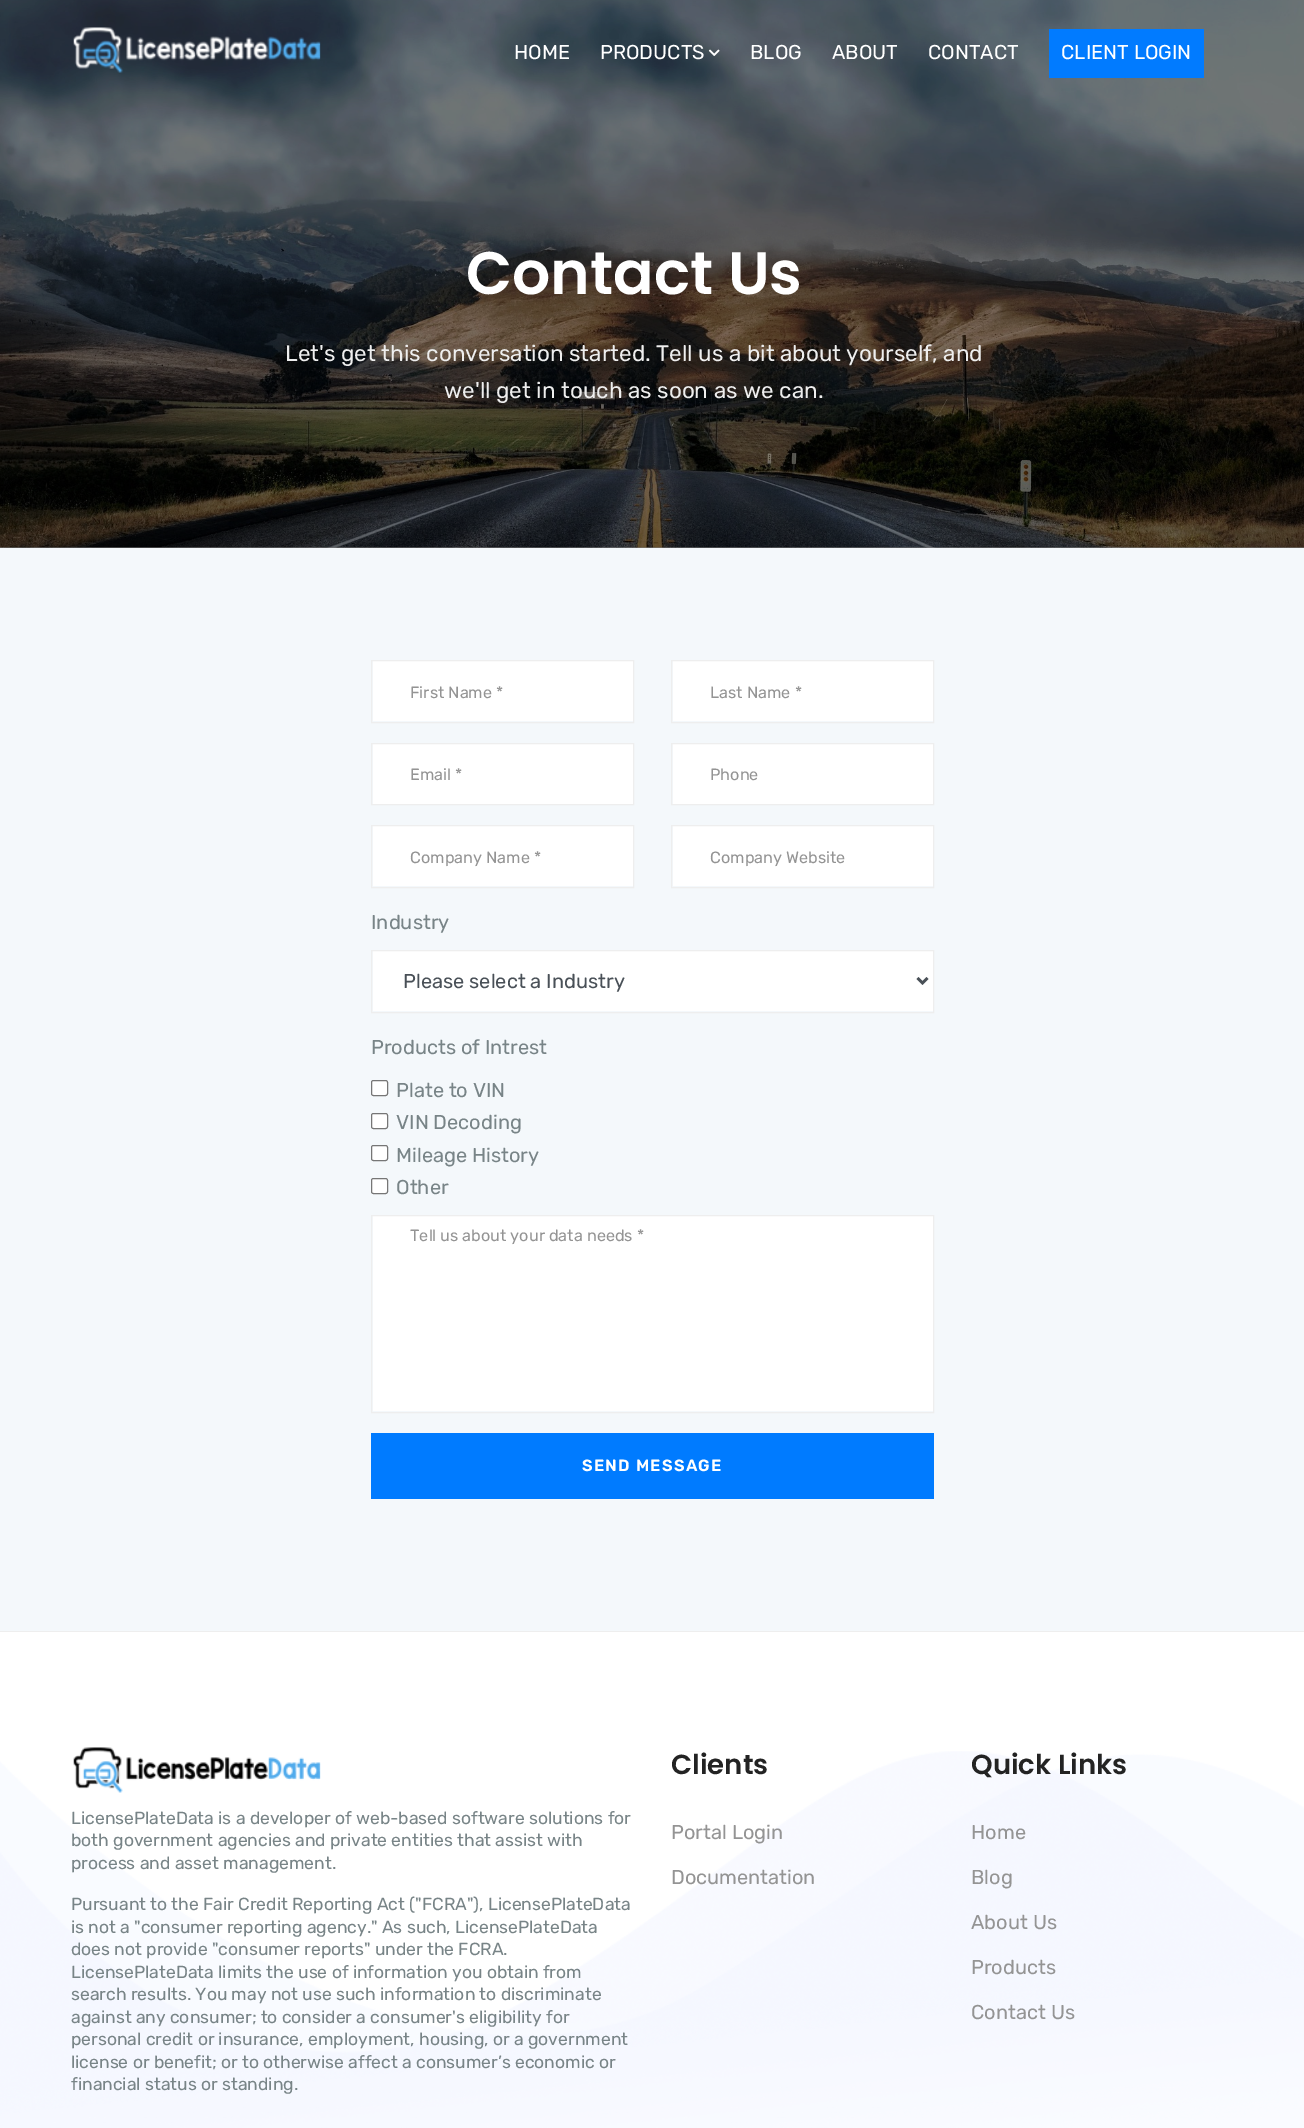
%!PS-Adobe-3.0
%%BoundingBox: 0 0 1304 2128
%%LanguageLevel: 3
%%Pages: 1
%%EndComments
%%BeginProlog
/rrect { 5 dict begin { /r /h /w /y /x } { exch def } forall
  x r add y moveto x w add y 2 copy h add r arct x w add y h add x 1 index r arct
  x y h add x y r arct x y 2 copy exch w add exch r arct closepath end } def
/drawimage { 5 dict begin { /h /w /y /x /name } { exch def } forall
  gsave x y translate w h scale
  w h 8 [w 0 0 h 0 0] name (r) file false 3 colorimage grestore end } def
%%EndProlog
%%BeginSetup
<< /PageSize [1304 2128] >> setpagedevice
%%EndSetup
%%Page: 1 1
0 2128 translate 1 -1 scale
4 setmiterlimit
1 setgray
0 0 1304 2128 rectfill
0.502 setgray
0 547 1304 1 rectfill
(images/3.raw) 0 0 1304 548 drawimage
(images/1.raw) 73 27 248 46 drawimage
(images/2.raw) 708 49 12 7 drawimage
0.004 0.482 1 setrgbcolor
1049 29 155 49 rectfill
0.957 0.973 0.984 setrgbcolor
0 548 1304 1083 rectfill
1 setgray
373 661 260 60 rectfill
0.933 setgray
371.5 660.5 262 62 rectstroke
1 setgray
673 661 260 60 rectfill
0.933 setgray
671.5 660.5 262 62 rectstroke
1 setgray
373 744 260 60 rectfill
0.933 setgray
371.5 743.5 262 61 rectstroke
1 setgray
673 744 260 60 rectfill
0.933 setgray
671.5 743.5 262 61 rectstroke
1 setgray
373 826 260 60 rectfill
0.933 setgray
371.5 825.5 262 62 rectstroke
1 setgray
673 826 260 60 rectfill
0.933 setgray
671.5 825.5 262 62 rectstroke
1 setgray
373 951 560 60 rectfill
0.933 setgray
371.5 950.5 562 62 rectstroke
0.286 0.314 0.341 setrgbcolor
2.5 setlinewidth
newpath 917.5 978 moveto 922.5 983 lineto 927.5 978 lineto stroke
1 setgray
371.5 1080.5 16 15 2 rrect gsave fill grestore
0.463 setgray
1 setlinewidth
stroke
1 setgray
371.5 1113.5 16 15 2 rrect gsave fill grestore
0.463 setgray
stroke
1 setgray
371.5 1145.5 16 15 2 rrect gsave fill grestore
0.463 setgray
stroke
1 setgray
371.5 1178.5 16 15 2 rrect gsave fill grestore
0.463 setgray
stroke
1 setgray
373 1216 560 195 rectfill
0.933 setgray
371.5 1215.5 562 197 rectstroke
0 0.482 1 setrgbcolor
371 1433 563 66 rectfill
(images/4.raw) 0 1751 1304 377 drawimage
0.933 setgray
0 1631 1304 1 rectfill
(images/5.raw) 73 1747 248 46 drawimage
/Rubik-Regular [20 0 0 -20 0 0] selectfont
1 setgray
514 59 moveto (HOME) show
600 59 moveto (PRODUCTS) show
750 59 moveto (BLOG) show
832 59 moveto (ABOUT) show
928 59 moveto (CONTACT) show
1061 59 moveto (CLIENT LOGIN) show
/Poppins-SemiBold [60 0 0 -60 0 0] selectfont
466 294 moveto (Contact Us) show
/Rubik-Regular [22.5 0 0 -22.5 0 0] selectfont
0.933 setgray
285 361 moveto (Let's get this conversation started. Tell us a bit about yourself, and) show
444 398 moveto (we'll get in touch as soon as we can.) show
/Rubik-Regular [16.25 0 0 -16.25 0 0] selectfont
0.58 setgray
410 698 moveto (First Name *) show
710 698 moveto (Last Name *) show
410 780 moveto (Email *) show
710 780 moveto (Phone) show
410 863 moveto (Company Name *) show
710 863 moveto (Company Website) show
/Rubik-Regular [20 0 0 -20 0 0] selectfont
0.471 0.518 0.529 setrgbcolor
371 929 moveto (Industry) show
0.286 0.314 0.341 setrgbcolor
403 988 moveto (Please select a Industry) show
0.471 0.518 0.529 setrgbcolor
371 1054 moveto (Products of Intrest) show
396 1097 moveto (Plate to VIN) show
396 1129 moveto (VIN Decoding) show
396 1162 moveto (Mileage History) show
396 1194 moveto (Other) show
/Rubik-Regular [16.25 0 0 -16.25 0 0] selectfont
0.58 setgray
410 1241 moveto (Tell us about your data needs *) show
/Rubik-SemiBold [16.25 0 0 -16.25 0 0] selectfont
1 setgray
582 1471 moveto 1.25 0 (SEND MESSAGE) ashow
/Rubik-Regular [17.5 0 0 -17.5 0 0] selectfont
0.471 0.518 0.529 setrgbcolor
71 1824 moveto (LicensePlateData is a developer of web-based software solutions for) show
71 1846 moveto (both government agencies and private entities that assist with) show
71 1869 moveto (process and asset management.) show
71 1910 moveto (Pursuant to the Fair Credit Reporting Act \("FCRA"\), LicensePlateData) show
71 1933 moveto (is not a "consumer reporting agency." As such, LicensePlateData) show
71 1955 moveto (does not provide "consumer reports" under the FCRA.) show
71 1978 moveto (LicensePlateData limits the use of information you obtain from) show
71 2000 moveto (search results. You may not use such information to discriminate) show
71 2023 moveto (against any consumer; to consider a consumer's eligibility for) show
71 2045 moveto (personal credit or insurance, employment, housing, or a government) show
71 2068 moveto (license or benefit; or to otherwise affect a consumer’s economic or) show
71 2090 moveto (financial status or standing.) show
/Poppins-SemiBold [27.5 0 0 -27.5 0 0] selectfont
0.137 setgray
671 1774 moveto (Clients) show
/Rubik-Regular [20 0 0 -20 0 0] selectfont
0.58 setgray
671 1839 moveto (Portal Login) show
671 1884 moveto (Documentation) show
/Poppins-SemiBold [27.5 0 0 -27.5 0 0] selectfont
0.137 setgray
971 1774 moveto (Quick Links) show
/Rubik-Regular [20 0 0 -20 0 0] selectfont
0.58 setgray
971 1839 moveto (Home) show
971 1884 moveto (Blog) show
971 1929 moveto (About Us) show
971 1974 moveto (Products) show
971 2019 moveto (Contact Us) show
showpage
%%EOF
